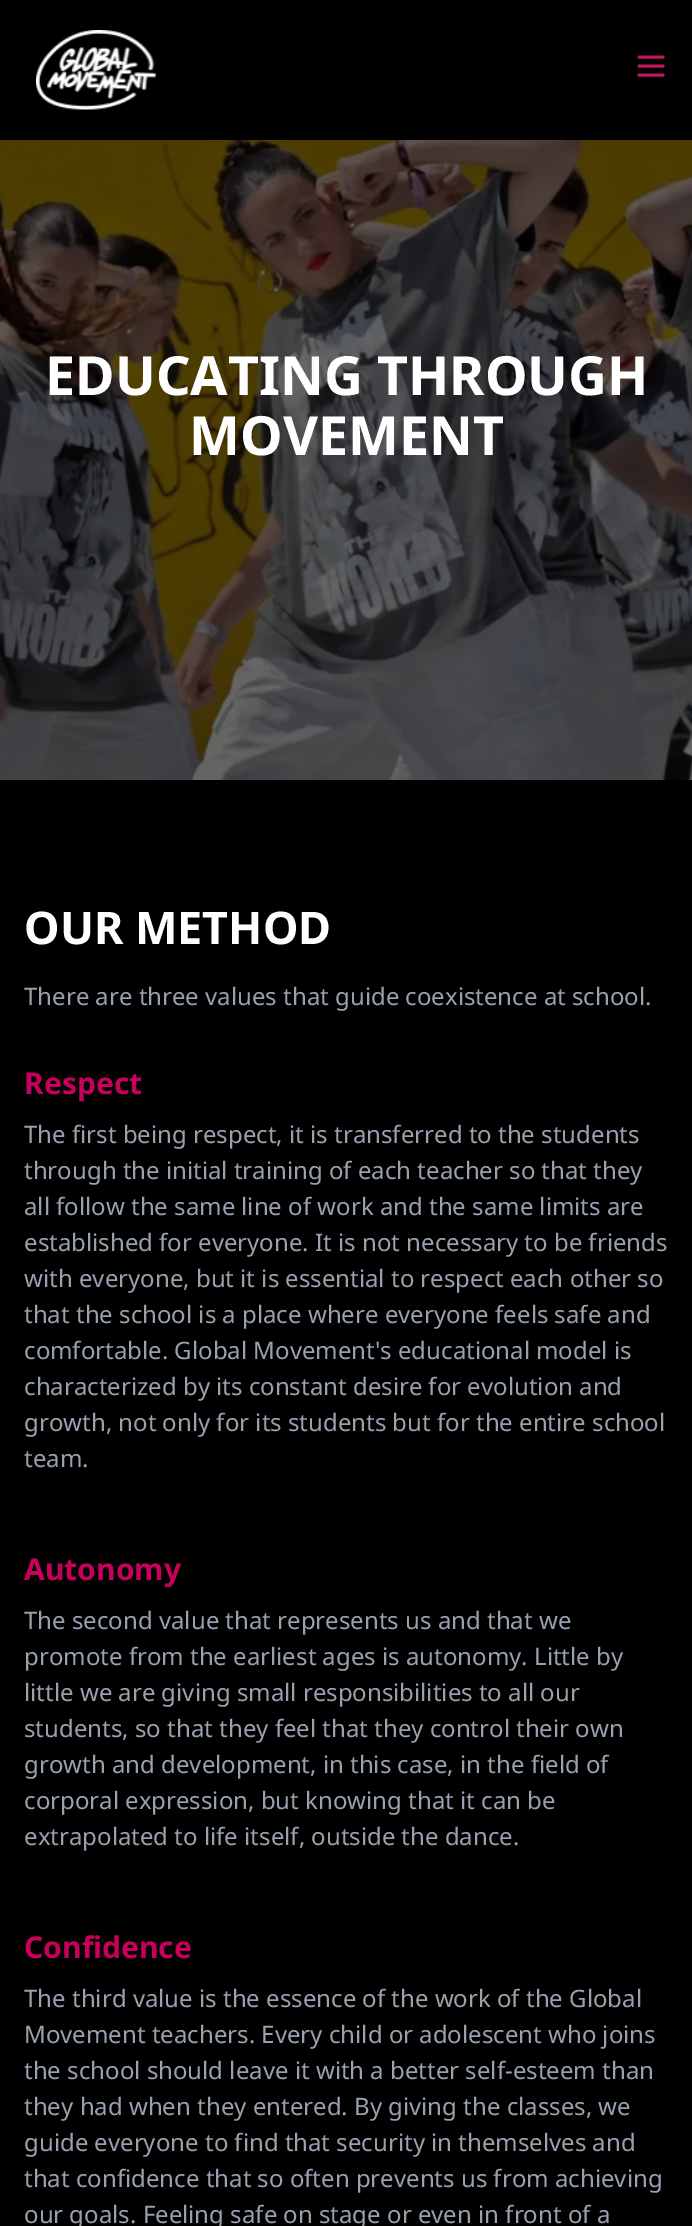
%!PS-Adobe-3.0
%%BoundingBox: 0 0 692 2226
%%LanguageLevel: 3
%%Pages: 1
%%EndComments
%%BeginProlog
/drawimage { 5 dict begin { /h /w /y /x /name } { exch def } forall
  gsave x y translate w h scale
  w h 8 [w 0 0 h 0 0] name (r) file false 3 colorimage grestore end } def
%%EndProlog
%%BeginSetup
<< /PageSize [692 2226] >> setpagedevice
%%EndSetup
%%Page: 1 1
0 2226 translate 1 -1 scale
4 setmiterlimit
0 setgray
0 0 692 2226 rectfill
(images/1.raw) 36 30 120 80 drawimage
0.749 0.09 0.365 setrgbcolor
3 setlinewidth
1 setlinecap
1 setlinejoin
newpath 639 66 moveto 663 66 lineto 639 75 moveto 663 75 lineto 639 57 moveto 663 57 lineto stroke
(images/2.raw) 0 140 692 640 drawimage
/NotoSans-Bold [54 0 0 -54 0 0] selectfont
1 setgray
45 395 moveto (EDUCATING THROUGH) show
189 455 moveto (MOVEMENT) show
/NotoSans-Bold [45 0 0 -45 0 0] selectfont
24 944 moveto (OUR METHOD) show
/NotoSans-Regular [24 0 0 -24 0 0] selectfont
0.6 0.631 0.686 setrgbcolor
24 1005 moveto (There are three values that guide coexistence at school.) show
/NotoSans-Bold [30 0 0 -30 0 0] selectfont
0.776 0 0.361 setrgbcolor
24 1094 moveto (Respect) show
/NotoSans-Regular [24 0 0 -24 0 0] selectfont
0.6 0.631 0.686 setrgbcolor
24 1143 moveto (The first being respect, it is transferred to the students) show
24 1179 moveto (through the initial training of each teacher so that they) show
24 1215 moveto (all follow the same line of work and the same limits are) show
24 1251 moveto (established for everyone. It is not necessary to be friends) show
24 1287 moveto (with everyone, but it is essential to respect each other so) show
24 1323 moveto (that the school is a place where everyone feels safe and) show
24 1359 moveto (comfortable. Global Movement's educational model is) show
24 1395 moveto (characterized by its constant desire for evolution and) show
24 1431 moveto (growth, not only for its students but for the entire school) show
24 1467 moveto (team.) show
/NotoSans-Bold [30 0 0 -30 0 0] selectfont
0.776 0 0.361 setrgbcolor
24 1580 moveto (Autonomy) show
/NotoSans-Regular [24 0 0 -24 0 0] selectfont
0.6 0.631 0.686 setrgbcolor
24 1629 moveto (The second value that represents us and that we) show
24 1665 moveto (promote from the earliest ages is autonomy. Little by) show
24 1701 moveto (little we are giving small responsibilities to all our) show
24 1737 moveto (students, so that they feel that they control their own) show
24 1773 moveto (growth and development, in this case, in the field of) show
24 1809 moveto (corporal expression, but knowing that it can be) show
24 1845 moveto (extrapolated to life itself, outside the dance.) show
/NotoSans-Bold [30 0 0 -30 0 0] selectfont
0.776 0 0.361 setrgbcolor
24 1958 moveto (Confidence) show
/NotoSans-Regular [24 0 0 -24 0 0] selectfont
0.6 0.631 0.686 setrgbcolor
24 2007 moveto (The third value is the essence of the work of the Global) show
24 2043 moveto (Movement teachers. Every child or adolescent who joins) show
24 2079 moveto (the school should leave it with a better self-esteem than) show
24 2115 moveto (they had when they entered. By giving the classes, we) show
24 2151 moveto (guide everyone to find that security in themselves and) show
24 2187 moveto (that confidence that so often prevents us from achieving) show
24 2223 moveto (our goals. Feeling safe on stage or even in front of a) show
showpage
%%EOF
